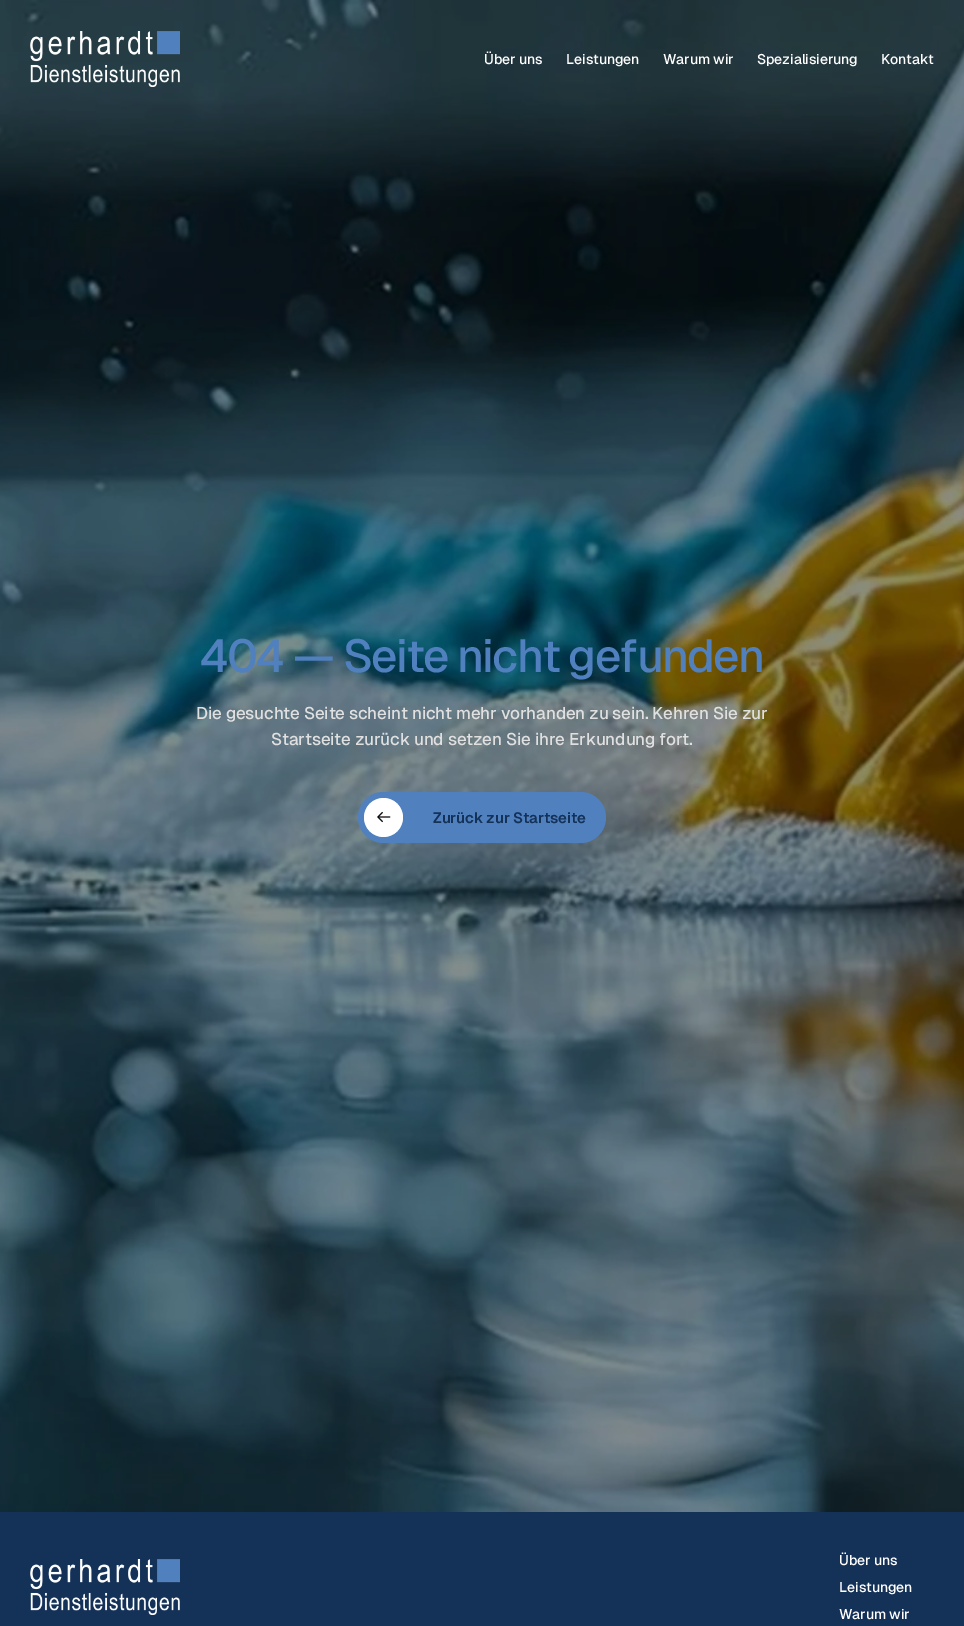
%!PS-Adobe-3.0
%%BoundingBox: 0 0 964 1626
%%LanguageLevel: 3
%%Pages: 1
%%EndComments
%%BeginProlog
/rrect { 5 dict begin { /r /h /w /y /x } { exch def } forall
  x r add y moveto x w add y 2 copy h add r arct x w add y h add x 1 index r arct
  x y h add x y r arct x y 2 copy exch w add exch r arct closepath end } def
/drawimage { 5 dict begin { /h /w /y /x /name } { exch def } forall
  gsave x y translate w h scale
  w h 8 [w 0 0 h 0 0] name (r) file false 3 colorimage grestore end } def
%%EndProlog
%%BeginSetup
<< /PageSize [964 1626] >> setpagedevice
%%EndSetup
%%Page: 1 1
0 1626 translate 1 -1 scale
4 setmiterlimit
1 setgray
0 0 964 1626 rectfill
(images/2.raw) 0 0 964 1512 drawimage
(images/1.raw) 30 31 150 56 drawimage
0.314 0.502 0.745 setrgbcolor
358 792 248 51 25.5 rrect fill
1 setgray
newpath 383.5 817.5 19.5 0 360 arc closepath fill
(images/3.raw) 377 811 14 12 drawimage
0.078 0.192 0.345 setrgbcolor
0 1512 964 114 rectfill
(images/4.raw) 30 1559 150 56 drawimage
/Geist-Medium [14 0 0 -14 0 0] selectfont
1 setgray
484 64 moveto -0.1 0 (Über uns) ashow
566 64 moveto -0.1 0 (Leistungen) ashow
663 64 moveto -0.1 0 (Warum wir) ashow
757 64 moveto -0.1 0 (Spezialisierung) ashow
881 64 moveto -0.1 0 (Kontakt) ashow
/Geist-Medium [46 0 0 -46 0 0] selectfont
0.314 0.502 0.745 setrgbcolor
200 672 moveto -1.75 0 (404 — Seite nicht gefunden) ashow
/Geist-Medium [17 0 0 -17 0 0] selectfont
0.878 setgray
196 719 moveto -0.17 0 (Die gesuchte Seite scheint nicht mehr vorhanden zu sein. Kehren Sie zur) ashow
271 745 moveto -0.17 0 (Startseite zurück und setzen Sie ihre Erkundung fort.) ashow
/Geist-SemiBold [15 0 0 -15 0 0] selectfont
0.078 0.192 0.345 setrgbcolor
433 823 moveto -0.15 0 (Zurück zur Startseite) ashow
/Geist-Medium [14 0 0 -14 0 0] selectfont
1 setgray
839 1565 moveto -0.1 0 (Über uns) ashow
839 1592 moveto -0.1 0 (Leistungen) ashow
839 1619 moveto -0.1 0 (Warum wir) ashow
showpage
%%EOF
